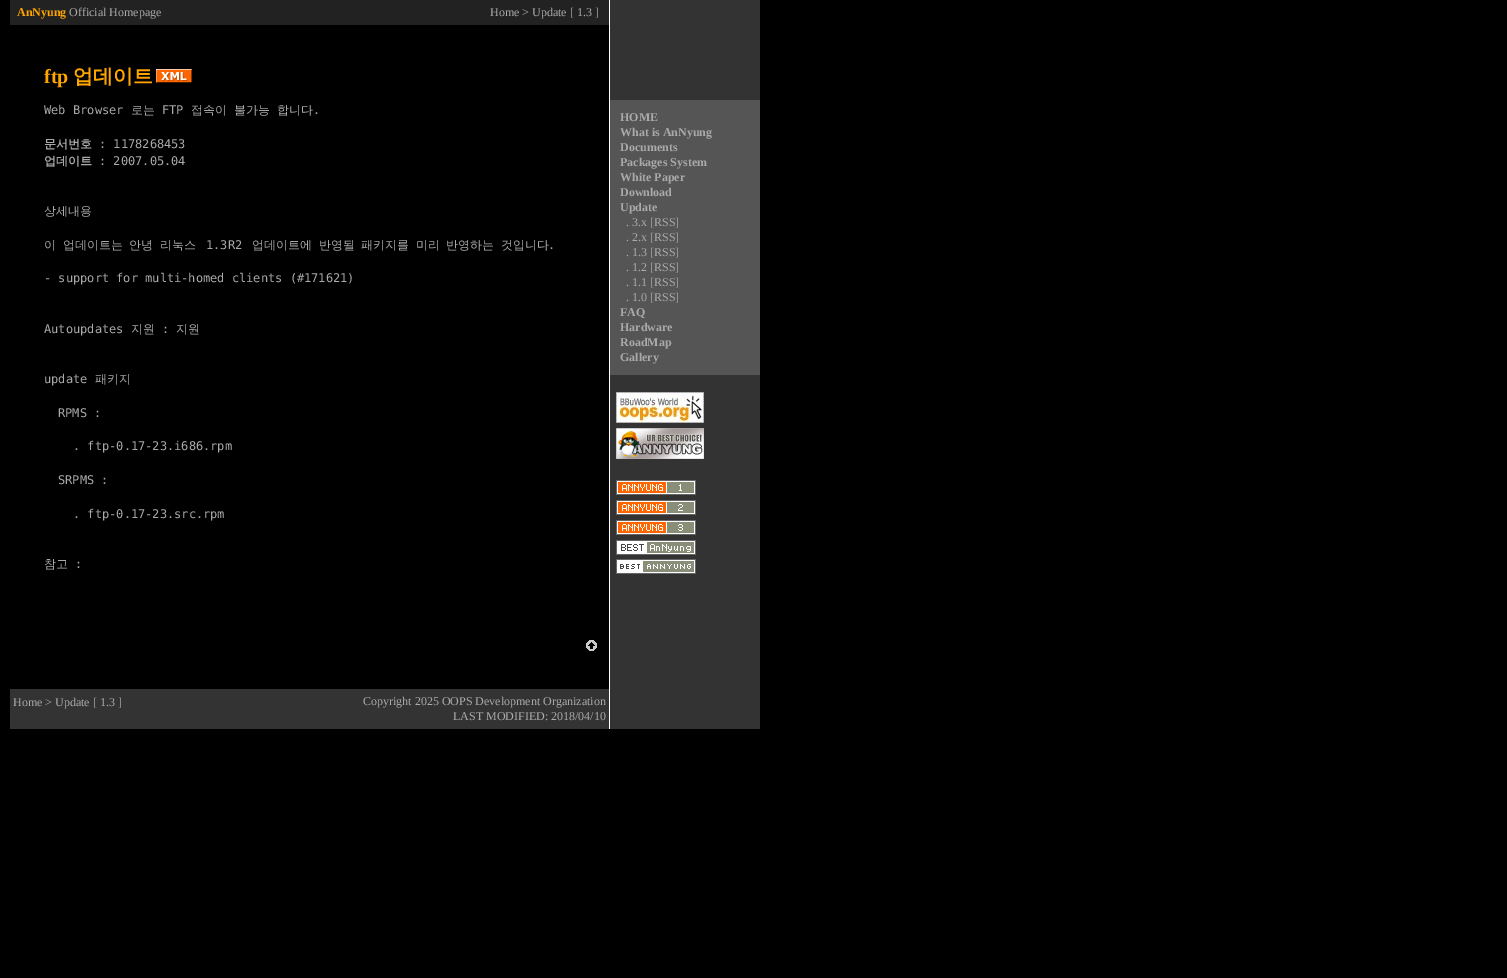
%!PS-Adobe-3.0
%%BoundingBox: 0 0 1507 978
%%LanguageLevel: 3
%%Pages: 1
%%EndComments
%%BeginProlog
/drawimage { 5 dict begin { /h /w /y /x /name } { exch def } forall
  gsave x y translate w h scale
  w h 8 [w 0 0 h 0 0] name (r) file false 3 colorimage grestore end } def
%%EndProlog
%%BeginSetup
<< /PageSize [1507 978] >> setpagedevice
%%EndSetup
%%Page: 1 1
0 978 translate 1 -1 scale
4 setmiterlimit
0 setgray
0 0 1507 978 rectfill
0.133 setgray
10 0 599 25 rectfill
1 setgray
609 0 1 729 rectfill
0.2 setgray
610 0 150 729 rectfill
0.333 setgray
610 100 150 275 rectfill
(images/1.raw) 616 392 88 31 drawimage
(images/2.raw) 616 428 88 31 drawimage
(images/3.raw) 616 480 80 15 drawimage
(images/4.raw) 616 500 80 15 drawimage
(images/5.raw) 616 520 80 15 drawimage
(images/6.raw) 616 540 80 15 drawimage
(images/7.raw) 616 559 80 15 drawimage
(images/8.raw) 156 69 36 14 drawimage
(images/9.raw) 586 640 11 11 drawimage
0.2 setgray
10 689 599 40 rectfill
/LiberationSerif-Bold [12 0 0 -12 0 0] selectfont
1 0.647 0 setrgbcolor
17 16 moveto (AnNyung) show
/LiberationSerif-Regular [12 0 0 -12 0 0] selectfont
0.667 setgray
69 16 moveto (Official Homepage) show
490 16 moveto (Home > Update [ 1.3 ]) show
/LiberationSerif-Bold [12 0 0 -12 0 0] selectfont
620 121 moveto (HOME) show
620 136 moveto (What is AnNyung) show
620 151 moveto (Documents) show
620 166 moveto (Packages System) show
620 181 moveto (White Paper) show
620 196 moveto (Download) show
620 211 moveto (Update) show
/LiberationSerif-Regular [12 0 0 -12 0 0] selectfont
626 226 moveto (. 3.x [RSS]) show
626 241 moveto (. 2.x [RSS]) show
626 256 moveto (. 1.3 [RSS]) show
626 271 moveto (. 1.2 [RSS]) show
626 286 moveto (. 1.1 [RSS]) show
626 301 moveto (. 1.0 [RSS]) show
/LiberationSerif-Bold [12 0 0 -12 0 0] selectfont
620 316 moveto (FAQ) show
620 331 moveto (Hardware) show
620 346 moveto (RoadMap) show
620 361 moveto (Gallery) show
/LiberationSerif-Bold [20 0 0 -20 0 0] selectfont
1 0.647 0 setrgbcolor
44 83 moveto (ftp) show
/WenQuanYiZenHei-Bold [20 0 0 -20 0 0] selectfont
73 83 moveto (업데이트) show
/DejaVuSansMono-Regular [12 0 0 -12 0 0] selectfont
0.667 setgray
44 114 moveto (Web Browser) show
/WenQuanYiZenHei-Medium [12 0 0 -12 0 0] selectfont
131 114 moveto (로는) show
/DejaVuSansMono-Regular [12 0 0 -12 0 0] selectfont
162 114 moveto (FTP) show
/WenQuanYiZenHei-Medium [12 0 0 -12 0 0] selectfont
191 114 moveto (접속이) show
234 114 moveto (불가능) show
277 114 moveto (합니다) show
/DejaVuSansMono-Regular [12 0 0 -12 0 0] selectfont
313 114 moveto (.) show
/WenQuanYiZenHei-Bold [12 0 0 -12 0 0] selectfont
44 148 moveto (문서번호) show
/DejaVuSansMono-Regular [12 0 0 -12 0 0] selectfont
99 148 moveto (: 1178268453) show
/WenQuanYiZenHei-Bold [12 0 0 -12 0 0] selectfont
44 165 moveto (업데이트) show
/DejaVuSansMono-Regular [12 0 0 -12 0 0] selectfont
99 165 moveto (: 2007.05.04) show
/WenQuanYiZenHei-Medium [12 0 0 -12 0 0] selectfont
44 215 moveto (상세내용) show
44 249 moveto 3 0 32 (이 업데이트는 안녕 리눅스) widthshow
/DejaVuSansMono-Regular [12 0 0 -12 0 0] selectfont
206 249 moveto (1.3R2) show
/WenQuanYiZenHei-Medium [12 0 0 -12 0 0] selectfont
252 249 moveto 3 0 32 (업데이트에 반영될 패키지를 미리 반영하는 것입니다) widthshow
/DejaVuSansMono-Regular [12 0 0 -12 0 0] selectfont
548 249 moveto (.) show
44 282 moveto (- support for multi-homed clients \(#171621\)) show
44 333 moveto (Autoupdates) show
/WenQuanYiZenHei-Medium [12 0 0 -12 0 0] selectfont
131 333 moveto (지원) show
/DejaVuSansMono-Regular [12 0 0 -12 0 0] selectfont
162 333 moveto (:) show
/WenQuanYiZenHei-Medium [12 0 0 -12 0 0] selectfont
176 333 moveto (지원) show
/DejaVuSansMono-Regular [12 0 0 -12 0 0] selectfont
44 383 moveto (update) show
/WenQuanYiZenHei-Medium [12 0 0 -12 0 0] selectfont
95 383 moveto (패키지) show
/DejaVuSansMono-Regular [12 0 0 -12 0 0] selectfont
58 417 moveto (RPMS :) show
73 450 moveto (. ftp-0.17-23.i686.rpm) show
58 484 moveto (SRPMS :) show
73 518 moveto (. ftp-0.17-23.src.rpm) show
/WenQuanYiZenHei-Medium [12 0 0 -12 0 0] selectfont
44 568 moveto (참고) show
/DejaVuSansMono-Regular [12 0 0 -12 0 0] selectfont
75 568 moveto (:) show
/LiberationSerif-Regular [12 0 0 -12 0 0] selectfont
13 706 moveto (Home > Update [ 1.3 ]) show
363 705 moveto (Copyright 2025 OOPS Development Organization) show
453 720 moveto (LAST MODIFIED: 2018/04/10) show
showpage
%%EOF
